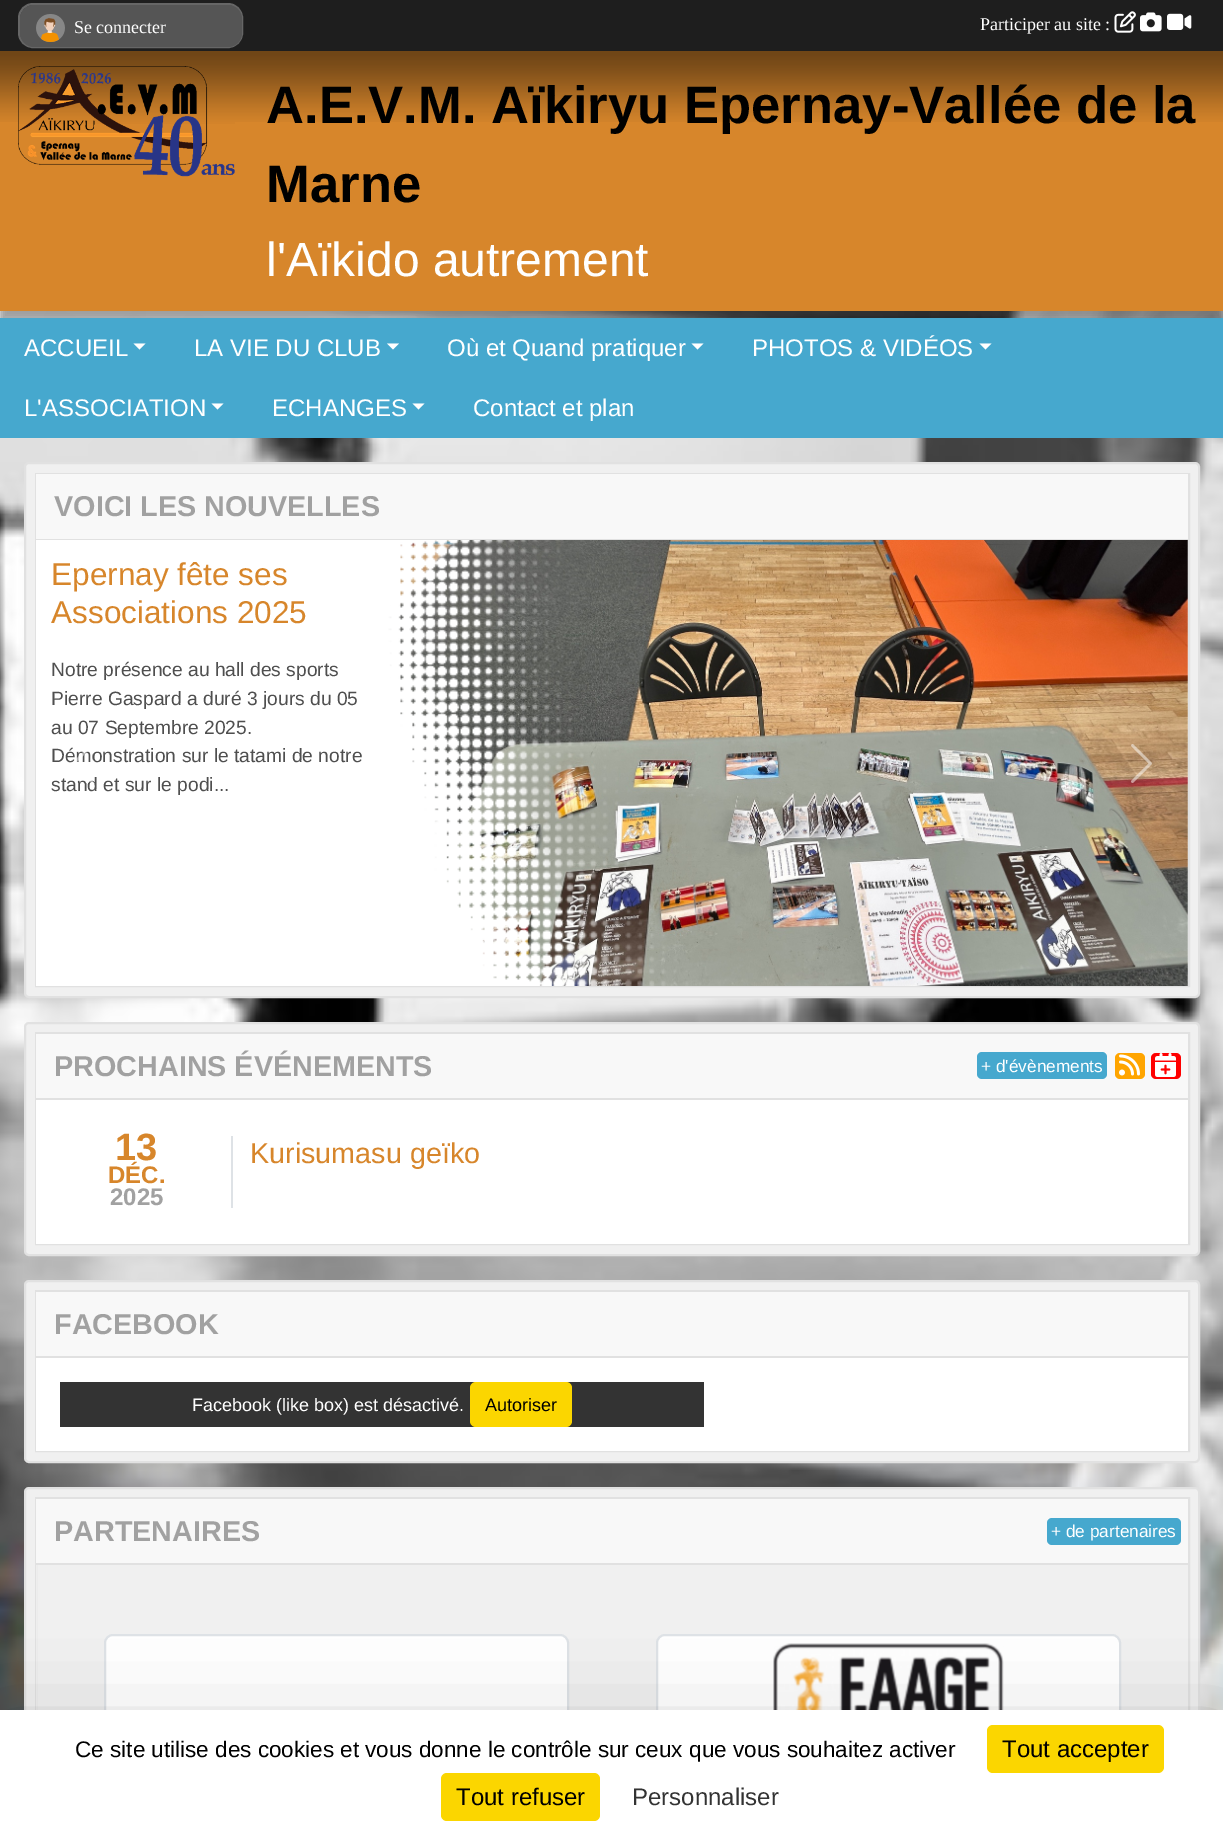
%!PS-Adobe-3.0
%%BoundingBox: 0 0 1223 1835
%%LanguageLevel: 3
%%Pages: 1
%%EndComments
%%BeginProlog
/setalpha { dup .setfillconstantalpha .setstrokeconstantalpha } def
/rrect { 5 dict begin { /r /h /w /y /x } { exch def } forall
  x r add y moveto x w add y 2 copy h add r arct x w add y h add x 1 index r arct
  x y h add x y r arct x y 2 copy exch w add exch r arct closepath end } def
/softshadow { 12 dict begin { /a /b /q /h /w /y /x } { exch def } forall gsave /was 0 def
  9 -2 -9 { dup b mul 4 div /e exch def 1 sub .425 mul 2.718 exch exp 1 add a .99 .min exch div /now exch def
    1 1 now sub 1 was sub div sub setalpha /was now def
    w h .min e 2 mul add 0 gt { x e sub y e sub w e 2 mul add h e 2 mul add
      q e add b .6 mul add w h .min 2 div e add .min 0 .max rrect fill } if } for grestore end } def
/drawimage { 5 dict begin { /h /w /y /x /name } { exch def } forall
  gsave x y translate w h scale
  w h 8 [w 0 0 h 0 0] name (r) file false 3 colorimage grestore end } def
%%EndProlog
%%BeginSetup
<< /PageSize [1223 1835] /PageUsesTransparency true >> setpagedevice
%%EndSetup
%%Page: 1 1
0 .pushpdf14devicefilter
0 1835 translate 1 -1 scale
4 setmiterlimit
1 setgray
0 0 1223 1835 rectfill
(images/1.raw) 0 311 1223 1399 drawimage
0.314 setgray
0 62 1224 259 0 4 0.5 softshadow
0.118 setgray
0 0 1223 51 rectfill
0.2 setgray
19 4 223 43 14 rrect gsave fill grestore
0.4 setgray
2 setlinewidth
stroke
0.333 setgray
20 5 222 42 14 rrect fill
(images/2.raw) 36 14 29 28 drawimage
(images/3.raw) 1114 11 22 22 drawimage
(images/4.raw) 1140 12 22 20 drawimage
(images/5.raw) 1167 13 25 17 drawimage
0.843 0.525 0.169 setrgbcolor
0 51 1223 260 rectfill
(images/6.raw) 0 51 1223 71 drawimage
(images/7.raw) 18 66 217 111 drawimage
0.275 0.659 0.808 setrgbcolor
0 318 1223 120 rectfill
1 setgray
newpath 133.5 343.5 moveto 145.5 343.5 lineto 139.5 349.5 lineto closepath fill
newpath 387 343.5 moveto 399 343.5 lineto 393 349.5 lineto closepath fill
newpath 691.5 343.5 moveto 703.5 343.5 lineto 697.5 349.5 lineto closepath fill
newpath 979.5 343.5 moveto 991.5 343.5 lineto 985.5 349.5 lineto closepath fill
newpath 211.5 403.5 moveto 223.5 403.5 lineto 217.5 409.5 lineto closepath fill
newpath 412.5 403.5 moveto 424.5 403.5 lineto 418.5 409.5 lineto closepath fill
0.941 setgray
25 463 1174 534 4 rrect gsave fill grestore
0.882 setgray
stroke
36 474 1153 512 rectstroke
0.973 setgray
36 474 1152 65 rectfill
0.882 setgray
36 539 1152 1 rectfill
1 setgray
36 540 345 446 rectfill
0.941 setgray
388 985 800 1 rectfill
(images/9.raw) 398 540 790 446 drawimage
(images/8.raw) 381 540 307 446 drawimage
(images/10.raw) 1131 744 21 39 drawimage
25 1023 1174 232 4 rrect gsave fill grestore
0.882 setgray
stroke
36 1033 1153 211 rectstroke
0.973 setgray
36 1034 1152 64 rectfill
0.882 setgray
36 1098 1152 2 rectfill
0.275 0.659 0.808 setrgbcolor
977 1052 130 27 5 rrect fill
1 0.647 0 setrgbcolor
1115 1053 30 26 5 rrect fill
(images/12.raw) 1119 1054 21 22 drawimage
1 0 0 setrgbcolor
1151 1053 30 26 5 rrect fill
(images/13.raw) 1155 1053 21 24 drawimage
1 setgray
36 1100 1152 144 rectfill
0.871 0.886 0.902 setrgbcolor
231 1136 2 72 rectfill
0.941 setgray
25 1281 1174 181 4 rrect gsave fill grestore
0.882 setgray
stroke
36 1291 1153 160 rectstroke
0.973 setgray
36 1292 1152 64 rectfill
0.882 setgray
36 1356 1152 2 rectfill
1 setgray
36 1358 1152 93 rectfill
0.2 setgray
60 1382 644 45 rectfill
0.984 0.839 0 setrgbcolor
470 1382 102 45 6 rrect fill
0.941 setgray
25 1488 1174 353 4 rrect gsave fill grestore
0.882 setgray
stroke
36 1498 1153 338 rectstroke
0.973 setgray
36 1499 1152 64 rectfill
0.882 setgray
36 1563 1152 2 rectfill
0.933 setgray
36 1565 1 145 rectfill
0.275 0.659 0.808 setrgbcolor
1047 1518 134 27 5 rrect fill
1 setgray
105 1635 463 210 8 rrect gsave fill grestore
0.871 0.886 0.902 setrgbcolor
stroke
1 setgray
657 1635 463 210 8 rrect gsave fill grestore
0.871 0.886 0.902 setrgbcolor
stroke
(images/14.raw) 773 1643 231 67 drawimage
0 setgray
0 1740 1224 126 0 45 0.25 softshadow
1 setgray
0 1710 1223 125 rectfill
0.984 0.839 0 setrgbcolor
987 1725 177 48 6 rrect fill
441 1773 159 48 6 rrect fill
/LiberationSerif-Regular [18 0 0 -18 0 0] selectfont
1 setgray
74 33 moveto (Se connecter) show
980 30 moveto (Participer au site :) show
/LiberationSans-Bold [52.6 0 0 -52.6 0 0] selectfont
0 setgray
266 123 moveto (A.E.V.M. Aïkiryu Epernay-Vallée de la) show
266 202 moveto (Marne) show
/LiberationSans-Regular [48 0 0 -48 0 0] selectfont
1 setgray
266 276 moveto (l'Aïkido autrement) show
/LiberationSans-Regular [24 0 0 -24 0 0] selectfont
24 356 moveto (ACCUEIL) show
194 356 moveto (LA VIE DU CLUB) show
447 356 moveto (Où et Quand pratiquer) show
752 356 moveto (PHOTOS & VIDÉOS) show
24 416 moveto (L'ASSOCIATION) show
272 416 moveto (ECHANGES) show
473 416 moveto (Contact et plan) show
/LiberationSans-Bold [28.75 0 0 -28.75 0 0] selectfont
0.631 setgray
54 516 moveto (VOICI LES NOUVELLES) show
/LiberationSans-Regular [31.5 0 0 -31.5 0 0] selectfont
0.843 0.525 0.169 setrgbcolor
51 585 moveto (Epernay fête ses) show
51 623 moveto (Associations 2025) show
/LiberationSans-Regular [19.25 0 0 -19.25 0 0] selectfont
0.31 setgray
51 676 moveto (Notre présence au hall des sports) show
51 705 moveto (Pierre Gaspard a duré 3 jours du 05) show
51 734 moveto (au 07 Septembre 2025.) show
51 762 moveto (Démonstration sur le tatami de notre) show
51 791 moveto (stand et sur le podi...) show
(images/11.raw) 73 751 20 32 drawimage
/LiberationSans-Bold [28.75 0 0 -28.75 0 0] selectfont
0.631 setgray
54 1076 moveto (PROCHAINS ÉVÉNEMENTS) show
/LiberationSans-Regular [17.25 0 0 -17.25 0 0] selectfont
1 setgray
981 1072 moveto (+ d'évènements) show
/LiberationSans-Bold [38 0 0 -38 0 0] selectfont
0.843 0.525 0.169 setrgbcolor
115 1160 moveto (13) show
/LiberationSans-Bold [24 0 0 -24 0 0] selectfont
108 1183 moveto (DÉC.) show
0.631 setgray
110 1205 moveto (2025) show
/LiberationSans-Regular [28.75 0 0 -28.75 0 0] selectfont
0.843 0.525 0.169 setrgbcolor
250 1163 moveto (Kurisumasu geïko) show
/LiberationSans-Bold [28.75 0 0 -28.75 0 0] selectfont
0.631 setgray
54 1334 moveto (FACEBOOK) show
/LiberationSans-Regular [18 0 0 -18 0 0] selectfont
1 setgray
192 1411 moveto (Facebook \(like box\) est désactivé.) show
0 setgray
485 1411 moveto (Autoriser) show
/LiberationSans-Bold [28.75 0 0 -28.75 0 0] selectfont
0.631 setgray
54 1541 moveto (PARTENAIRES) show
/LiberationSans-Regular [17.25 0 0 -17.25 0 0] selectfont
1 setgray
1051 1537 moveto (+ de partenaires) show
/LiberationSans-Regular [22.5 0 0 -22.5 0 0] selectfont
0 setgray
75 1757 moveto (Ce site utilise des cookies et vous donne le contrôle sur ceux que vous souhaitez activer) show
/LiberationSans-Regular [24 0 0 -24 0 0] selectfont
1002 1757 moveto (Tout accepter) show
456 1805 moveto (Tout refuser) show
0.2 setgray
632 1805 moveto (Personnaliser) show
.poppdf14devicefilter showpage
%%EOF
